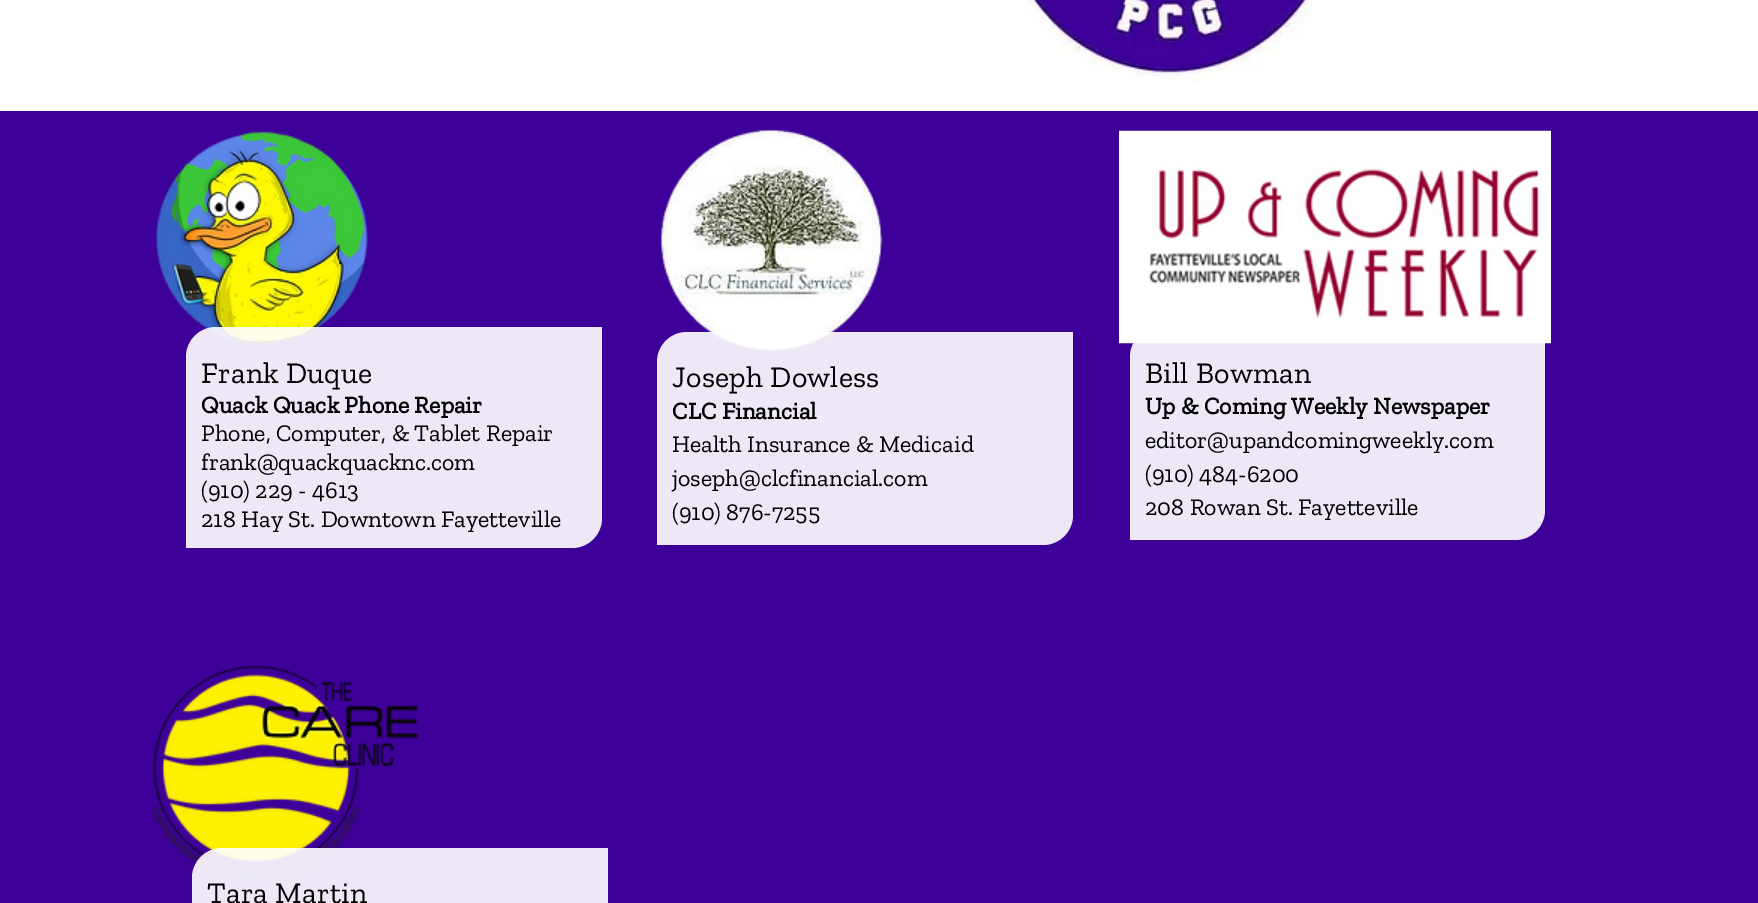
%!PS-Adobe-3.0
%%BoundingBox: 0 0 1758 903
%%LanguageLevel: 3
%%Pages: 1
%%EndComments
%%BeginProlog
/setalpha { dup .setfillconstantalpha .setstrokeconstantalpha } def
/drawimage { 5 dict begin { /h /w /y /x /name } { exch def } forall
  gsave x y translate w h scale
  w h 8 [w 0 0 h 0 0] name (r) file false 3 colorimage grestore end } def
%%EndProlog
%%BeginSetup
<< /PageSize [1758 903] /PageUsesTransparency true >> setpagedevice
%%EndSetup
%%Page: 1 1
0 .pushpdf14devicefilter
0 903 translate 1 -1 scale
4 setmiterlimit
1 setgray
0 0 1758 903 rectfill
(images/1.raw) 1026 0 287 82 drawimage
0.239 0 0.6 setrgbcolor
0 111 1758 792 rectfill
(images/2.raw) 155 131 213 213 drawimage
(images/3.raw) 660 129 223 223 drawimage
(images/4.raw) 1119 130 432 214 drawimage
0.91 setalpha
1 setgray
newpath 216 327 moveto 602 327 lineto 602 518 lineto 602 534.5 588.5 548 572 548 curveto 186 548 lineto 186 357 lineto 186 340.5 199.5 327 216 327 curveto closepath fill
newpath 687 332 moveto 1073 332 lineto 1073 515 lineto 1073 531.5 1059.5 545 1043 545 curveto 657 545 lineto 657 362 lineto 657 345.5 670.5 332 687 332 curveto closepath fill
newpath 1160 327 moveto 1545 327 lineto 1545 510 lineto 1545 526.5 1531.5 540 1515 540 curveto 1130 540 lineto 1130 357 lineto 1130 340.5 1143.5 327 1160 327 curveto closepath fill
1 setalpha
(images/5.raw) 151 665 268 216 drawimage
0.91 setalpha
newpath 222 848 moveto 608 848 lineto 608 903 lineto 608 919.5 594.5 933 578 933 curveto 192 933 lineto 192 878 lineto 192 861.5 205.5 848 222 848 curveto closepath fill
/ZillaSlab-Regular [30 0 0 -30 0 0] selectfont
1 setalpha
0 setgray
201 383 moveto 0.25 0 (Frank Duque) ashow
/ZillaSlab-Bold [24 0 0 -24 0 0] selectfont
201 413 moveto (Quack Quack Phone Repair) show
/ZillaSlab-Regular [24 0 0 -24 0 0] selectfont
201 441 moveto (Phone, Computer, & Tablet Repair) show
201 470 moveto (frank@quackquacknc.com) show
201 498 moveto (\(910\) 229 - 4613) show
201 527 moveto (218 Hay St. Downtown Fayetteville) show
/ZillaSlab-Regular [30 0 0 -30 0 0] selectfont
672 387 moveto 0.25 0 (Joseph Dowless) ashow
/ZillaSlab-Bold [24 0 0 -24 0 0] selectfont
672 419 moveto (CLC Financial) show
/ZillaSlab-Regular [24 0 0 -24 0 0] selectfont
672 452 moveto (Health Insurance & Medicaid) show
672 486 moveto (joseph@clcfinancial.com) show
672 520 moveto (\(910\) 876-7255) show
/ZillaSlab-Regular [30 0 0 -30 0 0] selectfont
1145 383 moveto 0.25 0 (Bill Bowman) ashow
/ZillaSlab-Bold [24 0 0 -24 0 0] selectfont
1145 414 moveto (Up & Coming Weekly Newspaper) show
/ZillaSlab-Regular [24 0 0 -24 0 0] selectfont
1145 448 moveto (editor@upandcomingweekly.com) show
1145 482 moveto (\(910\) 484-6200) show
1145 515 moveto (208 Rowan St. Fayetteville) show
/ZillaSlab-Regular [30 0 0 -30 0 0] selectfont
207 903 moveto 0.25 0 (Tara Martin) ashow
.poppdf14devicefilter showpage
%%EOF
